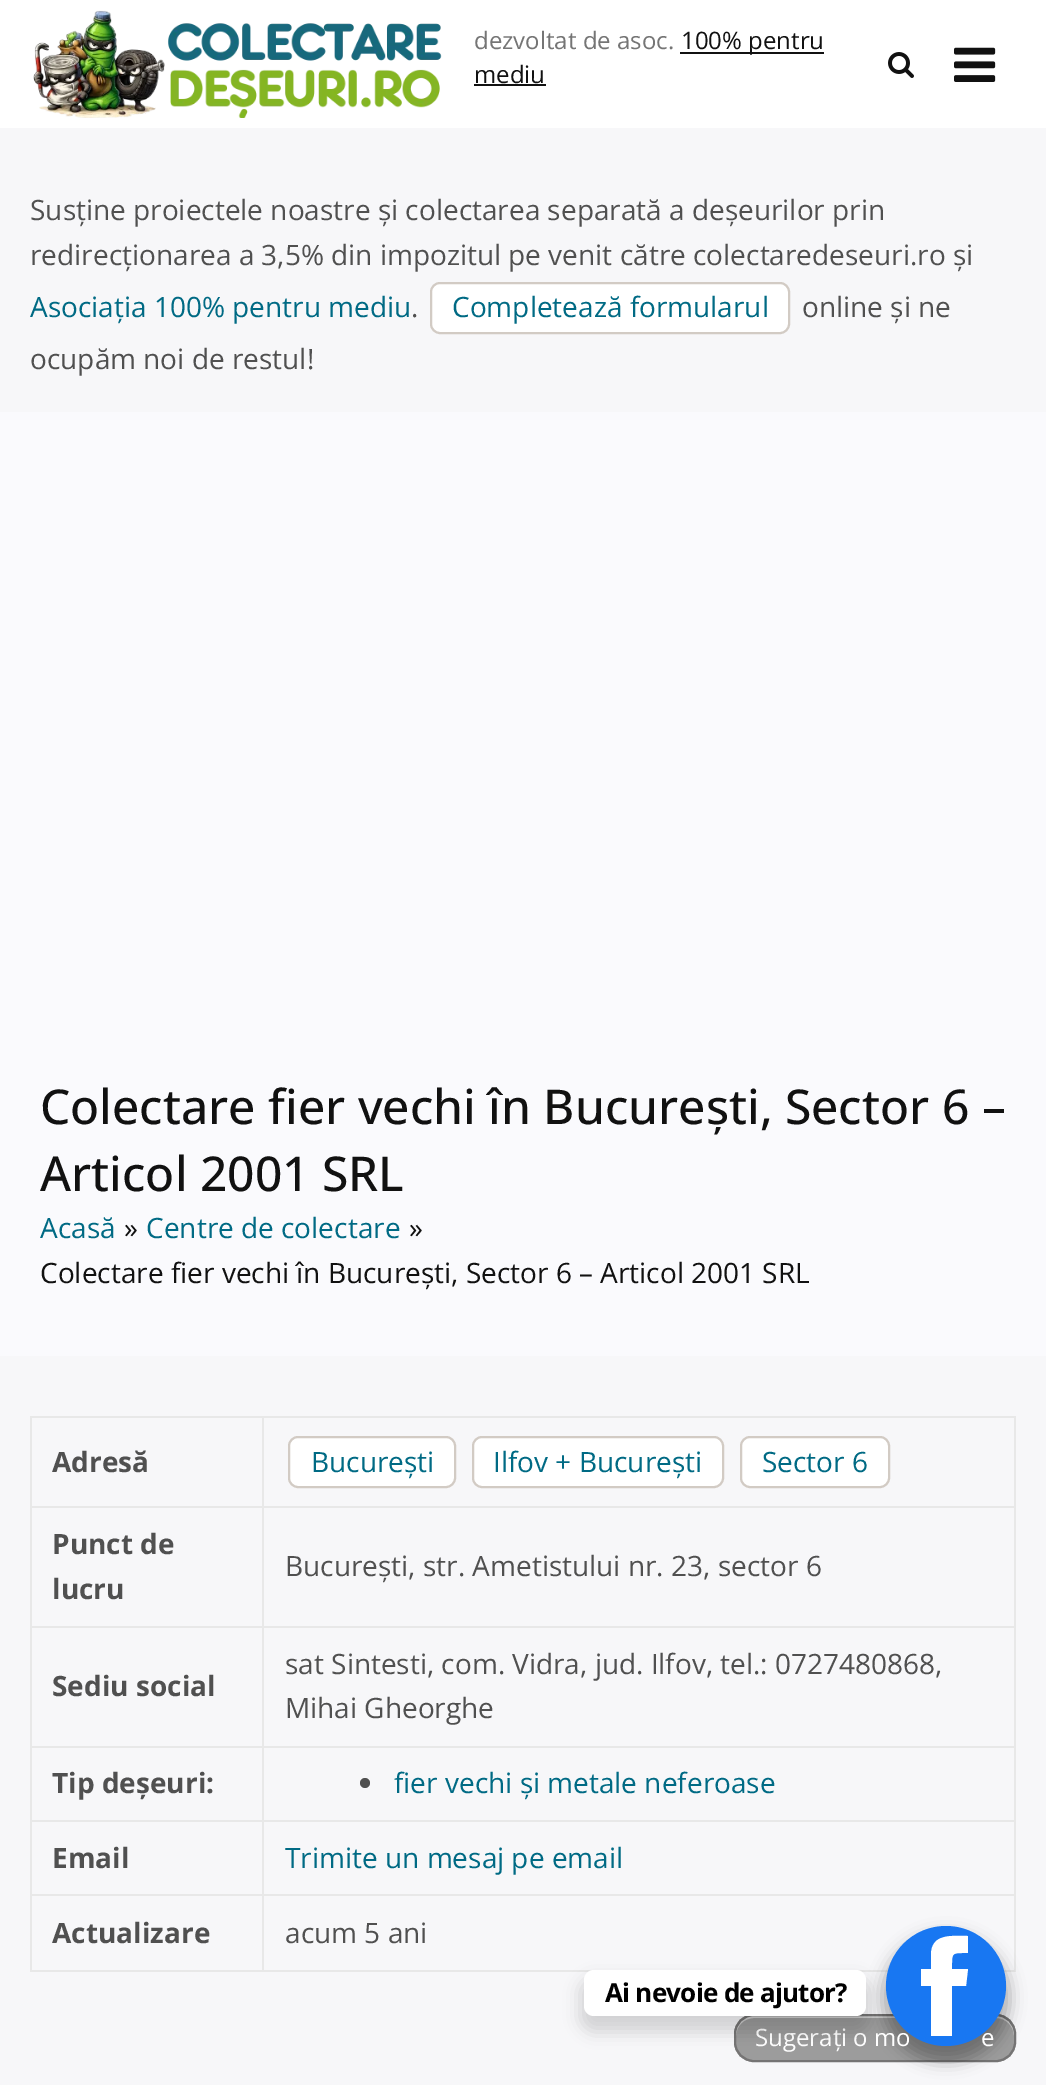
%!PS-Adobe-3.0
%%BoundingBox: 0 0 1046 2085
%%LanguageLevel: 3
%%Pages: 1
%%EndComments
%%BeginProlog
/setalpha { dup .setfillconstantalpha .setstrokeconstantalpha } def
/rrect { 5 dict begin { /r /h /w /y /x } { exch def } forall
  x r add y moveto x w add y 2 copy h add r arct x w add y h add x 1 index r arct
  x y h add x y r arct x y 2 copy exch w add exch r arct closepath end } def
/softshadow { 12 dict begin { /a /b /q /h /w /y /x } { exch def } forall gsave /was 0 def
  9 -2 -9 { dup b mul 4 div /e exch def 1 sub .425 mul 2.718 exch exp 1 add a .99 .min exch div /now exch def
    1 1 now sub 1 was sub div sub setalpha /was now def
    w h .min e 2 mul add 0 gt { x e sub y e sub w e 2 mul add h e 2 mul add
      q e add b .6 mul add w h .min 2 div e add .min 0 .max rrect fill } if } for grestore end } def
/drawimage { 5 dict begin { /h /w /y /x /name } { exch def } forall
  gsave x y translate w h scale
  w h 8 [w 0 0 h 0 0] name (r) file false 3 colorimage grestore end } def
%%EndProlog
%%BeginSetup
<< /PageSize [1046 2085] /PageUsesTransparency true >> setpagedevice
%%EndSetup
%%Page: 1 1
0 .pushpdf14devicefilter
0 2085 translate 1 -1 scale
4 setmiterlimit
0.969 0.969 0.976 setrgbcolor
0 0 1046 2085 rectfill
1 setgray
0 0 1046 128 rectfill
(images/1.raw) 33 10 409 108 drawimage
0.067 setgray
680 52 144 2 rectfill
474 84 72 2 rectfill
(images/2.raw) 888 52 26 26 drawimage
(images/3.raw) 954 47 42 35 drawimage
1 setgray
431 283 358 50 9 rrect gsave fill grestore
0.824 0.796 0.769 setrgbcolor
2 setlinewidth
stroke
0.98 0.98 0.992 setrgbcolor
0 412 1046 944 rectfill
0.91 setgray
30 1416 986 2 rectfill
1014 1416 2 556 rectfill
30 1970 986 2 rectfill
30 1416 2 556 rectfill
262 1506 754 2 rectfill
262 1626 754 2 rectfill
262 1746 754 2 rectfill
262 1820 754 2 rectfill
262 1894 754 2 rectfill
262 1894 2 78 rectfill
30 1894 234 2 rectfill
262 1820 2 76 rectfill
30 1820 234 2 rectfill
262 1746 2 76 rectfill
30 1746 234 2 rectfill
262 1626 2 122 rectfill
30 1626 234 2 rectfill
262 1506 2 122 rectfill
30 1506 234 2 rectfill
262 1416 2 92 rectfill
1 setgray
289 1437 166 50 9 rrect gsave fill grestore
0.824 0.796 0.769 setrgbcolor
stroke
1 setgray
473 1437 250 50 9 rrect gsave fill grestore
0.824 0.796 0.769 setrgbcolor
stroke
1 setgray
741 1437 148 50 9 rrect gsave fill grestore
0.824 0.796 0.769 setrgbcolor
stroke
0.314 setgray
newpath 365 1783 5 0 360 arc closepath fill
0.612 setgray
734 2014 282 48 20 rrect fill
0.808 setgray
newpath 754 2018 moveto 996 2018 lineto 1006 2018 1014 2026 1014 2036 curveto 1014 2034 lineto 1014 2024 1006 2016 996 2016 curveto 754 2016 lineto 744 2016 736 2024 736 2034 curveto 736 2036 lineto 736 2026 744 2018 754 2018 curveto closepath fill
0.459 0.455 0.455 setrgbcolor
735 2015 280 46 19 rrect stroke
0 setgray
882 1934 128 128 64 8 0.3 softshadow
/OpenSans-Regular [24 0 0 -24 0 0] selectfont
0.459 setgray
474 49 moveto (dezvoltat de asoc.) show
0.067 setgray
681 49 moveto (100% pentru) show
474 83 moveto (mediu) show
/OpenSans-Regular [28 0 0 -28 0 0] selectfont
0.314 setgray
30 220 moveto (Susține proiectele noastre și colectarea separată a deșeurilor prin) show
30 265 moveto (redirecționarea a 3,5% din impozitul pe venit către colectaredeseuri.ro și) show
0 0.416 0.518 setrgbcolor
30 317 moveto (Asociația 100% pentru mediu) show
0.314 setgray
411 317 moveto (.) show
0 0.416 0.518 setrgbcolor
452 317 moveto (Completează formularul) show
0.314 setgray
802 317 moveto (online și ne) show
30 369 moveto (ocupăm noi de restul!) show
/OpenSans-Medium [48 0 0 -48 0 0] selectfont
0.067 setgray
40 1124 moveto (Colectare fier vechi în București, Sector 6 –) show
40 1191 moveto (Articol 2001 SRL) show
/OpenSans-Regular [28 0 0 -28 0 0] selectfont
0 0.416 0.518 setrgbcolor
40 1238 moveto (Acasă) show
0.067 setgray
124 1238 moveto (») show
0 0.416 0.518 setrgbcolor
146 1238 moveto (Centre de colectare) show
0.067 setgray
409 1238 moveto (») show
40 1283 moveto (Colectare fier vechi în București, Sector 6 – Articol 2001 SRL) show
/OpenSans-Bold [28 0 0 -28 0 0] selectfont
0.314 setgray
52 1472 moveto (Adresă) show
/OpenSans-Regular [28 0 0 -28 0 0] selectfont
0 0.416 0.518 setrgbcolor
311 1472 moveto (București) show
493 1472 moveto (Ilfov + București) show
762 1472 moveto (Sector 6) show
/OpenSans-Bold [28 0 0 -28 0 0] selectfont
0.314 setgray
52 1554 moveto (Punct de) show
52 1599 moveto (lucru) show
/OpenSans-Regular [28 0 0 -28 0 0] selectfont
285 1576 moveto (București, str. Ametistului nr. 23, sector 6) show
/OpenSans-Bold [28 0 0 -28 0 0] selectfont
52 1696 moveto (Sediu social) show
/OpenSans-Regular [28 0 0 -28 0 0] selectfont
285 1674 moveto (sat Sintesti, com. Vidra, jud. Ilfov, tel.: 0727480868,) show
285 1718 moveto (Mihai Gheorghe) show
/OpenSans-Bold [28 0 0 -28 0 0] selectfont
52 1793 moveto (Tip deșeuri:) show
/OpenSans-Regular [28 0 0 -28 0 0] selectfont
0 0.416 0.518 setrgbcolor
394 1793 moveto (fier vechi și metale neferoase) show
/OpenSans-Bold [28 0 0 -28 0 0] selectfont
0.314 setgray
52 1868 moveto (Email) show
/OpenSans-Regular [28 0 0 -28 0 0] selectfont
0 0.416 0.518 setrgbcolor
285 1868 moveto (Trimite un mesaj pe email) show
/OpenSans-Bold [28 0 0 -28 0 0] selectfont
0.314 setgray
52 1943 moveto (Actualizare) show
/OpenSans-Regular [28 0 0 -28 0 0] selectfont
285 1943 moveto (acum 5 ani) show
/OpenSans-Regular [24 0 0 -24 0 0] selectfont
1 setgray
755 2046 moveto (Sugerați o mo) show
981 2046 moveto (e) show
0.094 0.467 0.949 setrgbcolor
newpath 946 1986 60 0 360 arc closepath fill
0 setgray
580 1978 290 54 14 8 0.15 softshadow
1 setgray
584 1970 282 46 10 rrect fill
/OpenSans-Bold [26 0 0 -26 0 0] selectfont
0 setgray
605 2002 moveto -0.75 0 (Ai nevoie de ajutor?) ashow
1 setgray
newpath 931 1955 moveto 931 1969 lineto 921 1969 lineto 921 1986 lineto 931 1986 lineto 931 2036 lineto 952 2036 lineto 952 1986 lineto 966 1986 lineto 968 1969 lineto 952 1969 lineto 952 1952 951 1953 968 1953 curveto 968 1936 lineto 952 1936 931 1933 931 1955 curveto closepath fill
.poppdf14devicefilter showpage
%%EOF
